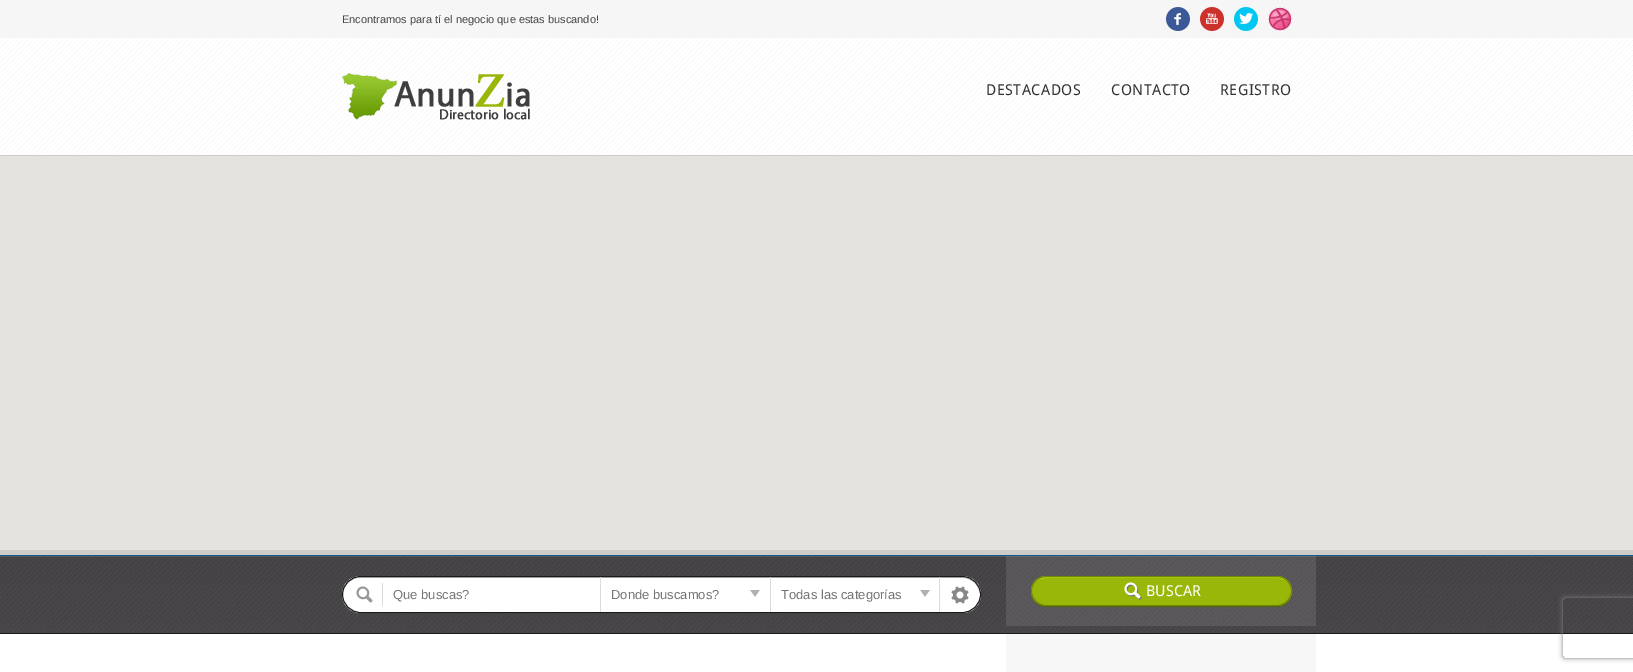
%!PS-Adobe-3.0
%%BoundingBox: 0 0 1633 672
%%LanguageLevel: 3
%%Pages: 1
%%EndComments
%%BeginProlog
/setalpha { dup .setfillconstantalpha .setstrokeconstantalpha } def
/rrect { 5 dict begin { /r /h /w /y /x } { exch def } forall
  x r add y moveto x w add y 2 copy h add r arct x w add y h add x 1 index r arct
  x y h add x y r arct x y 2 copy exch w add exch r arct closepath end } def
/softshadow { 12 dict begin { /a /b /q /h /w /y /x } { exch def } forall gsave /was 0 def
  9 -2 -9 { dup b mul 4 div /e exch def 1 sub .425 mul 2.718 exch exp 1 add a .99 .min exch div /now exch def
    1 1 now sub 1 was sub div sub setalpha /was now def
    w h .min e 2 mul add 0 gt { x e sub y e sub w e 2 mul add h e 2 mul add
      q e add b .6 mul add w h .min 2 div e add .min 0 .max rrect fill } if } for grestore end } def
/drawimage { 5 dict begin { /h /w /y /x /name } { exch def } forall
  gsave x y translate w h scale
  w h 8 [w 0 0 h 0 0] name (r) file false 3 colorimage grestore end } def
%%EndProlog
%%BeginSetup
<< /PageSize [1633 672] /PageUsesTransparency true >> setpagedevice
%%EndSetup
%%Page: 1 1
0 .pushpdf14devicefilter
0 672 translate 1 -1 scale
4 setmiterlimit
1 setgray
0 0 1633 672 rectfill
0.965 setgray
0 0 1633 38 rectfill
(images/1.raw) 1166 7 24 24 drawimage
(images/2.raw) 1200 7 24 24 drawimage
(images/3.raw) 1234 7 24 24 drawimage
(images/4.raw) 1268 7 24 24 drawimage
0.808 0.8 0.788 setrgbcolor
0 155 1633 1 rectfill
(images/5.raw) 0 38 1633 117 drawimage
(images/6.raw) 342 73 188 47 drawimage
0.898 0.89 0.875 setrgbcolor
0 156 1633 394 rectfill
0.808 0.8 0.788 setrgbcolor
0 550 1633 5 rectfill
0.294 0.282 0.294 setrgbcolor
0 556 1633 77 rectfill
(images/7.raw) 0 556 1633 77 drawimage
0.1 setalpha
1 setgray
0 556 1633 1 rectfill
1 setalpha
0.039 0.361 0.576 setrgbcolor
0 555 1633 1 rectfill
0.11 0.106 0.11 setrgbcolor
0 633 1633 1 rectfill
0.314 0.302 0.314 setrgbcolor
newpath 345 604 moveto 348 610 354 614 360 614 curveto 962 614 lineto 969 614 975 610 978 604 curveto 975 610 969 613 962 613 curveto 360 613 lineto 354 613 348 610 345 604 curveto closepath fill
1 setgray
342 576 639 37 18.5 rrect fill
0.8 setgray
newpath 360 578 moveto 962 578 lineto 972 578 980 586 980 595 curveto 980 585 972 577 962 577 curveto 360 577 lineto 356 577 351 579 348 582 curveto 345 586 343 590 343 595 curveto 343 586 351 578 360 578 curveto closepath fill
0.11 0.106 0.11 setrgbcolor
342.5 576.5 638 36 18 rrect stroke
0.863 setgray
382 583 1 23 rectfill
(images/8.raw) 356 586 17 17 drawimage
(images/9.raw) 750 590 10 7 drawimage
600 577 1 35 rectfill
(images/9.raw) 920 590 10 7 drawimage
770 577 1 35 rectfill
(images/10.raw) 951 586 18 18 drawimage
939 577 1 35 rectfill
0.1 setalpha
1 setgray
1006 556 310 70 rectfill
1 setalpha
0.294 0.357 0.016 setrgbcolor
newpath 1031 592 moveto 1031 600 1038 607 1046 607 curveto 1277 607 lineto 1285 607 1292 600 1292 592 curveto 1292 600 1285 606 1277 606 curveto 1046 606 lineto 1038 606 1031 600 1031 592 curveto closepath fill
0.596 0.718 0.035 setrgbcolor
1031 576 261 30 15 rrect fill
(images/11.raw) 1124 582 18 18 drawimage
0.722 0.871 0.043 setrgbcolor
newpath 1046 578 moveto 1277 578 lineto 1285 578 1291 584 1291 591 curveto 1291 584 1285 577 1277 577 curveto 1046 577 lineto 1038 577 1032 584 1032 591 curveto 1032 584 1038 578 1046 578 curveto closepath fill
0.439 0.525 0.027 setrgbcolor
1031.5 576.5 260 29 14.5 rrect stroke
0.969 setgray
1006 634 310 38 rectfill
gsave
newpath 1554 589 moveto 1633 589 lineto 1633 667 lineto 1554 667 lineto closepath 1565 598 moveto 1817 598 lineto 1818 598 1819 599 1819 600 curveto 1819 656 lineto 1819 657 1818 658 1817 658 curveto 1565 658 lineto 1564 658 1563 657 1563 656 curveto 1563 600 lineto 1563 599 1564 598 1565 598 curveto closepath eoclip newpath
0.502 setgray
1563 598 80 60 2 2.5 1 softshadow
grestore
/LiberationSans-Regular [11 0 0 -11 0 0] selectfont
0.267 setgray
342 23 moveto (Encontramos para tí el negocio que estas buscando!) show
/DroidSans-Regular [15 0 0 -15 0 0] selectfont
0.2 setgray
986 95 moveto 0.5 0 (DESTACADOS) ashow
1111 95 moveto 0.5 0 (CONTACTO) ashow
1220 95 moveto 0.5 0 (REGISTRO) ashow
/LiberationSans-Regular [13 0 0 -13 0 0] selectfont
0.459 setgray
393 599 moveto (Que buscas?) show
611 599 moveto (Donde buscamos?) show
781 599 moveto (Todas las categorías) show
/DroidSans-Regular [15 0 0 -15 0 0] selectfont
1 setgray
1146 596 moveto (BUSCAR) show
.poppdf14devicefilter showpage
%%EOF
